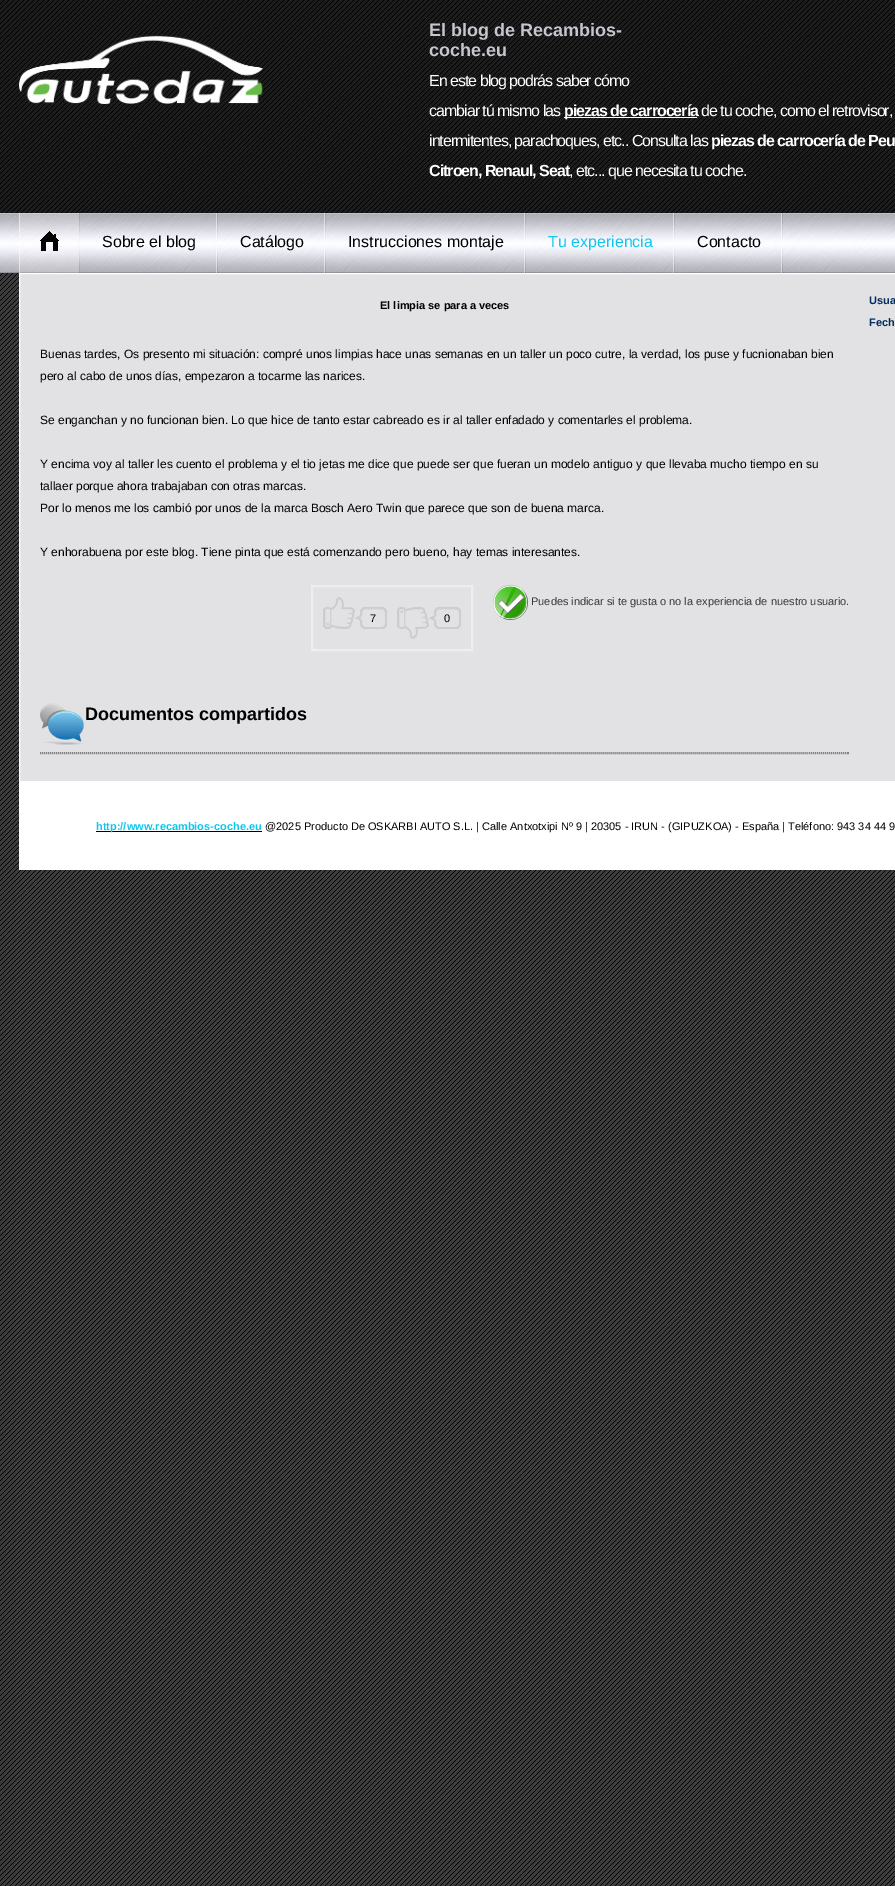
%!PS-Adobe-3.0
%%BoundingBox: 0 0 895 1886
%%LanguageLevel: 3
%%Pages: 1
%%EndComments
%%BeginProlog
/drawimage { 5 dict begin { /h /w /y /x /name } { exch def } forall
  gsave x y translate w h scale
  w h 8 [w 0 0 h 0 0] name (r) file false 3 colorimage grestore end } def
%%EndProlog
%%BeginSetup
<< /PageSize [895 1886] >> setpagedevice
%%EndSetup
%%Page: 1 1
0 1886 translate 1 -1 scale
4 setmiterlimit
1 setgray
0 0 895 1886 rectfill
(images/1.raw) 0 273 895 1613 drawimage
(images/2.raw) 0 0 895 213 drawimage
(images/3.raw) 19 35 245 69 drawimage
564 117 133 1 rectfill
(images/4.raw) 0 213 895 60 drawimage
(images/5.raw) 19 213 61 60 drawimage
(images/6.raw) 216 213 2 60 drawimage
(images/6.raw) 324 213 2 60 drawimage
(images/6.raw) 524 213 2 60 drawimage
(images/6.raw) 673 213 2 60 drawimage
(images/6.raw) 781 213 2 60 drawimage
0.886 0.886 0.894 setrgbcolor
newpath 19.5 273.5 moveto 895.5 273.5 lineto 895.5 781.5 lineto 19.5 781.5 lineto closepath gsave fill grestore
1 setgray
stroke
(images/7.raw) 493 585 35 35 drawimage
0.933 setgray
2 setlinewidth
312 586 160 64 rectstroke
(images/8.raw) 323 597 64 32 drawimage
(images/9.raw) 397 607 64 32 drawimage
(images/10.raw) 40 703 45 42 drawimage
0.502 setgray
1 setlinewidth
[1 1] 0 setdash
newpath 40 752.5 moveto 849 752.5 lineto stroke
848 752 1 2 rectfill
newpath 40 753.5 moveto 849 753.5 lineto stroke
1 setgray
19 782 876 88 rectfill
0 setgray
96 831 166 1 rectfill
/LiberationSans-Bold [18 0 0 -18 0 0] selectfont
0.776 0.776 0.808 setrgbcolor
429 36 moveto (El blog de Recambios-) show
429 56 moveto (coche.eu) show
/LiberationSans-Regular [16 0 0 -16 0 0] selectfont
1 setgray
429 86 moveto -1 0 (En este blog podrás saber cómo) ashow
429 116 moveto -1 0 (cambiar tú mismo las) ashow
/LiberationSans-Bold [16 0 0 -16 0 0] selectfont
564 116 moveto -1 0 (piezas de carrocería) ashow
/LiberationSans-Regular [16 0 0 -16 0 0] selectfont
701 116 moveto -1 0 (de tu coche, como el retrovisor,) ashow
429 146 moveto -1 0 (intermitentes, parachoques, etc.. Consulta las) ashow
/LiberationSans-Bold [16 0 0 -16 0 0] selectfont
711 146 moveto -1 0 (piezas de carrocería de Peu) ashow
429 176 moveto -1 0 (Citroen, Renaul, Seat) ashow
/LiberationSans-Regular [16 0 0 -16 0 0] selectfont
569 176 moveto -1 0 (, etc... que necesita tu coche.) ashow
0 setgray
102 247 moveto (Sobre el blog) show
240 247 moveto (Catálogo) show
348 247 moveto (Instrucciones montaje) show
0.059 0.776 0.933 setrgbcolor
548 247 moveto (Tu experiencia) show
0 setgray
697 247 moveto (Contacto) show
/LiberationSans-Bold [11 0 0 -11 0 0] selectfont
380 309 moveto (El limpia se para a veces) show
0.008 0.18 0.373 setrgbcolor
869 304 moveto (Usua) show
869 326 moveto (Fech) show
/LiberationSans-Regular [12 0 0 -12 0 0] selectfont
0 setgray
40 358 moveto (Buenas tardes, Os presento mi situación: compré unos limpias hace unas semanas en un taller un poco cutre, la verdad, los puse y fucnionaban bien) show
40 380 moveto (pero al cabo de unos días, empezaron a tocarme las narices.) show
40 424 moveto (Se enganchan y no funcionan bien. Lo que hice de tanto estar cabreado es ir al taller enfadado y comentarles el problema.) show
40 468 moveto (Y encima voy al taller les cuento el problema y el tio jetas me dice que puede ser que fueran un modelo antiguo y que llevaba mucho tiempo en su) show
40 490 moveto (tallaer porque ahora trabajaban con otras marcas.) show
40 512 moveto (Por lo menos me los cambió por unos de la marca Bosch Aero Twin que parece que son de buena marca.) show
40 556 moveto (Y enhorabuena por este blog. Tiene pinta que está comenzando pero bueno, hay temas interesantes.) show
/LiberationSans-Regular [11 0 0 -11 0 0] selectfont
0.216 setgray
531 605 moveto (Puedes indicar si te gusta o no la experiencia de nuestro usuario.) show
0 setgray
370 622 moveto (7) show
444 622 moveto (0) show
/LiberationSans-Bold [18 0 0 -18 0 0] selectfont
85 720 moveto (Documentos compartidos) show
/LiberationSans-Bold [11 0 0 -11 0 0] selectfont
0.059 0.776 0.933 setrgbcolor
96 830 moveto (http://www.recambios-coche.eu) show
/LiberationSans-Regular [11 0 0 -11 0 0] selectfont
0 setgray
265 830 moveto (@2025 Producto De OSKARBI AUTO S.L. | Calle Antxotxipi Nº 9 | 20305 - IRUN - \(GIPUZKOA\) - España | Teléfono: 943 34 44 9) show
showpage
%%EOF
